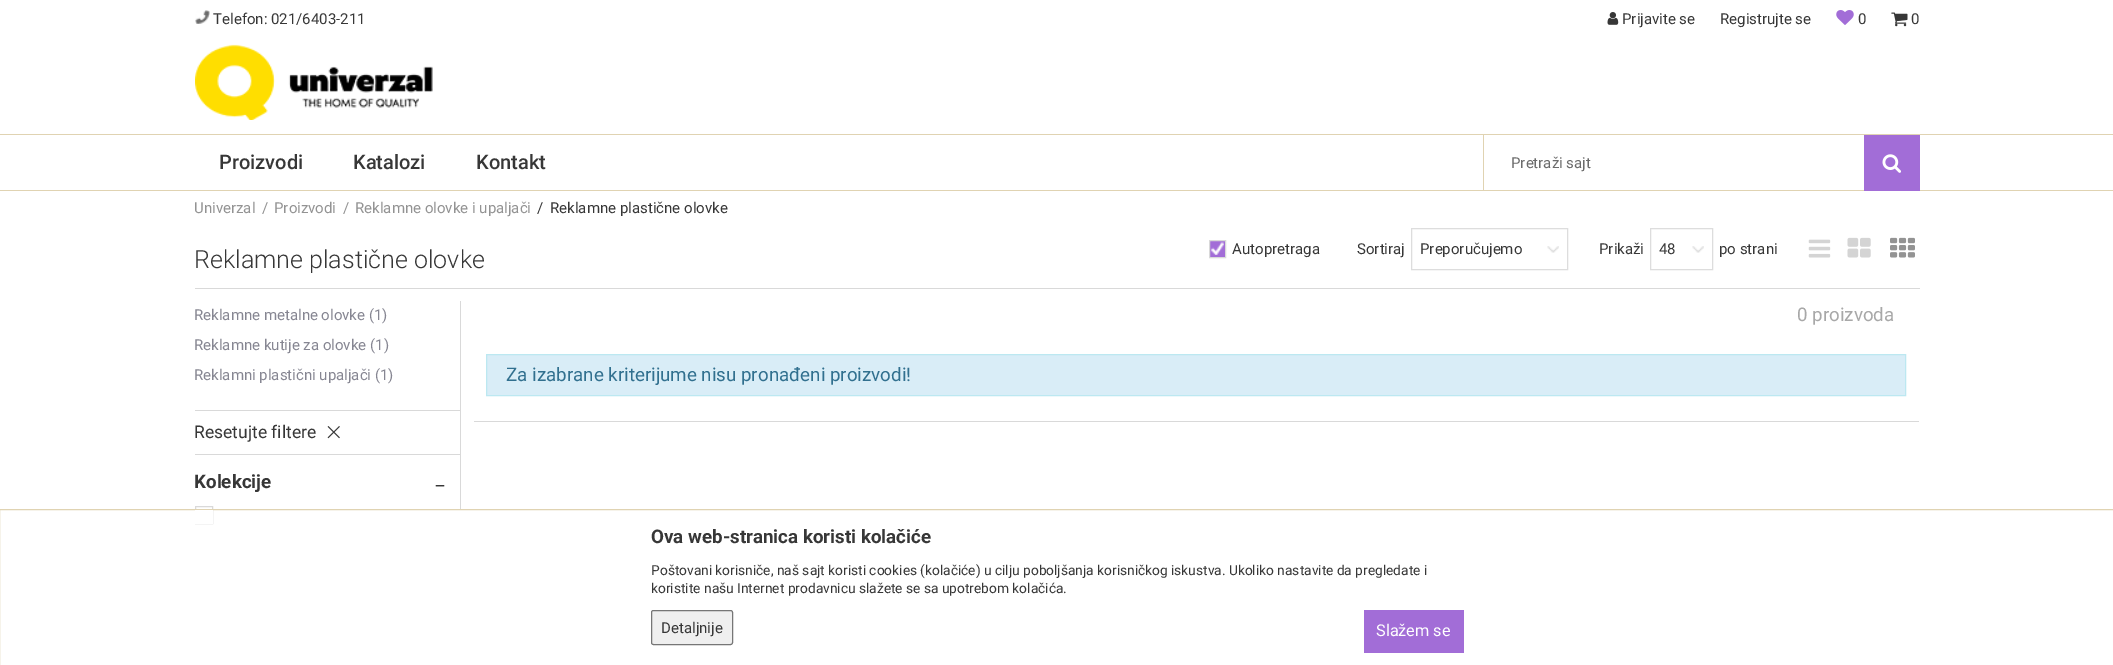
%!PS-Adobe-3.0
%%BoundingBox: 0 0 2113 665
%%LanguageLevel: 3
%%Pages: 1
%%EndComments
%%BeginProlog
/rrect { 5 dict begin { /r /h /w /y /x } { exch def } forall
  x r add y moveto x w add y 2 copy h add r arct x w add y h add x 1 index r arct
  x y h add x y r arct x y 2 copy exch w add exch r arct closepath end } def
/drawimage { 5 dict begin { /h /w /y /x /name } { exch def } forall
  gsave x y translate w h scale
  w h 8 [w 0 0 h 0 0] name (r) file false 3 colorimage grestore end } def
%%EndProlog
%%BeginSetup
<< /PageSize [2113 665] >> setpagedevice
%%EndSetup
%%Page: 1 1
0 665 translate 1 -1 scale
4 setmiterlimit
1 setgray
0 0 2113 665 rectfill
(images/1.raw) 195 10 15 14 drawimage
(images/2.raw) 1607 12 12 13 drawimage
(images/3.raw) 1836 10 18 15 drawimage
(images/4.raw) 1891 12 17 15 drawimage
(images/5.raw) 195 44 238 76 drawimage
0.878 0.827 0.698 setrgbcolor
0 134 2113 1 rectfill
0 190 2113 1 rectfill
1483 135 1 55 rectfill
0.635 0.427 0.843 setrgbcolor
1864 135 56 56 rectfill
(images/6.raw) 1882 154 19 19 drawimage
0.851 setgray
195 288 1725 1 rectfill
0.635 0.427 0.843 setrgbcolor
1210 241 15 16 rectfill
(images/7.raw) 1211 242 13 13 drawimage
0.851 setgray
1209.5 240.5 16 17 rectstroke
(images/8.raw) 1547 246 12 7 drawimage
0.867 setgray
1411.5 228.5 156 41 rectstroke
(images/9.raw) 1692 246 12 7 drawimage
1650.5 228.5 62 41 rectstroke
(images/10.raw) 1808 239 23 19 drawimage
(images/11.raw) 1847 237 24 21 drawimage
(images/12.raw) 1890 237 25 21 drawimage
0.851 setgray
460 301 1 208 rectfill
195 410 265 1 rectfill
195 454 265 1 rectfill
(images/13.raw) 327 426 13 13 drawimage
(images/14.raw) 435 485 10 2 drawimage
195.5 506.5 17 17 rectstroke
474 421 1445 1 rectfill
0.851 0.929 0.969 setrgbcolor
newpath 486.5 354.5 moveto 1905.5 354.5 lineto 1905.5 395.5 lineto 486.5 395.5 lineto closepath gsave fill grestore
0.737 0.91 0.945 setrgbcolor
stroke
0.878 0.827 0.698 setrgbcolor
-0.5 509.5 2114 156 rectstroke
1 setgray
195 510 18 14 rectfill
0.937 setgray
651.5 610.5 81 34 2 rrect gsave fill grestore
0.463 setgray
stroke
0.635 0.427 0.843 setrgbcolor
1364 610 100 43 rectfill
/Roboto-Regular [15 0 0 -15 0 0] selectfont
0.216 setgray
213 24 moveto (Telefon: 021/6403-211) show
1622 24 moveto (Prijavite se) show
1720 24 moveto (Registrujte se) show
1858 24 moveto (0) show
1911 24 moveto (0) show
/Roboto-Medium [20 0 0 -20 0 0] selectfont
219 169 moveto (Proizvodi) show
353 169 moveto (Katalozi) show
476 169 moveto (Kontakt) show
/Roboto-Regular [15 0 0 -15 0 0] selectfont
0.42 setgray
1511 168 moveto (Pretraži sajt) show
0.576 setgray
194 213 moveto (Univerzal) show
262 213 moveto (/) show
274 213 moveto (Proizvodi) show
343 213 moveto (/) show
355 213 moveto (Reklamne olovke i upaljači) show
0.216 setgray
537 213 moveto (/) show
550 213 moveto (Reklamne plastične olovke) show
/Roboto-Light [25 0 0 -25 0 0] selectfont
194 268 moveto (Reklamne plastične olovke) show
/Roboto-Regular [15 0 0 -15 0 0] selectfont
1232 254 moveto (Autopretraga) show
1357 254 moveto (Sortiraj) show
1420 254 moveto (Preporučujemo) show
1599 254 moveto (Prikaži) show
1659 254 moveto (48) show
1719 254 moveto (po strani) show
0.525 0.525 0.573 setrgbcolor
194 320 moveto (Reklamne metalne olovke \(1\)) show
194 350 moveto (Reklamne kutije za olovke \(1\)) show
194 380 moveto (Reklamni plastični upaljači \(1\)) show
/Roboto-Regular [17.5 0 0 -17.5 0 0] selectfont
0.216 setgray
194 438 moveto (Resetujte filtere) show
/Roboto-Bold [18.75 0 0 -18.75 0 0] selectfont
194 488 moveto (Kolekcije) show
/Roboto-Regular [18.75 0 0 -18.75 0 0] selectfont
0.659 setgray
1797 321 moveto (0 proizvoda) show
0.192 0.439 0.561 setrgbcolor
506 381 moveto (Za izabrane kriterijume nisu pronađeni proizvodi!) show
/Roboto-Bold [18.75 0 0 -18.75 0 0] selectfont
0.216 setgray
651 543 moveto (Ova web-stranica koristi kolačiće) show
/Roboto-Regular [13.75 0 0 -13.75 0 0] selectfont
651 575 moveto (Poštovani korisniče, naš sajt koristi cookies \(kolačiće\) u cilju poboljšanja korisničkog iskustva. Ukoliko nastavite da pregledate i) show
651 593 moveto (koristite našu Internet prodavnicu slažete se sa upotrebom kolačića.) show
/Roboto-Regular [15 0 0 -15 0 0] selectfont
661 633 moveto (Detaljnije) show
/Roboto-Regular [16.25 0 0 -16.25 0 0] selectfont
1 setgray
1376 636 moveto (Slažem se) show
showpage
%%EOF
